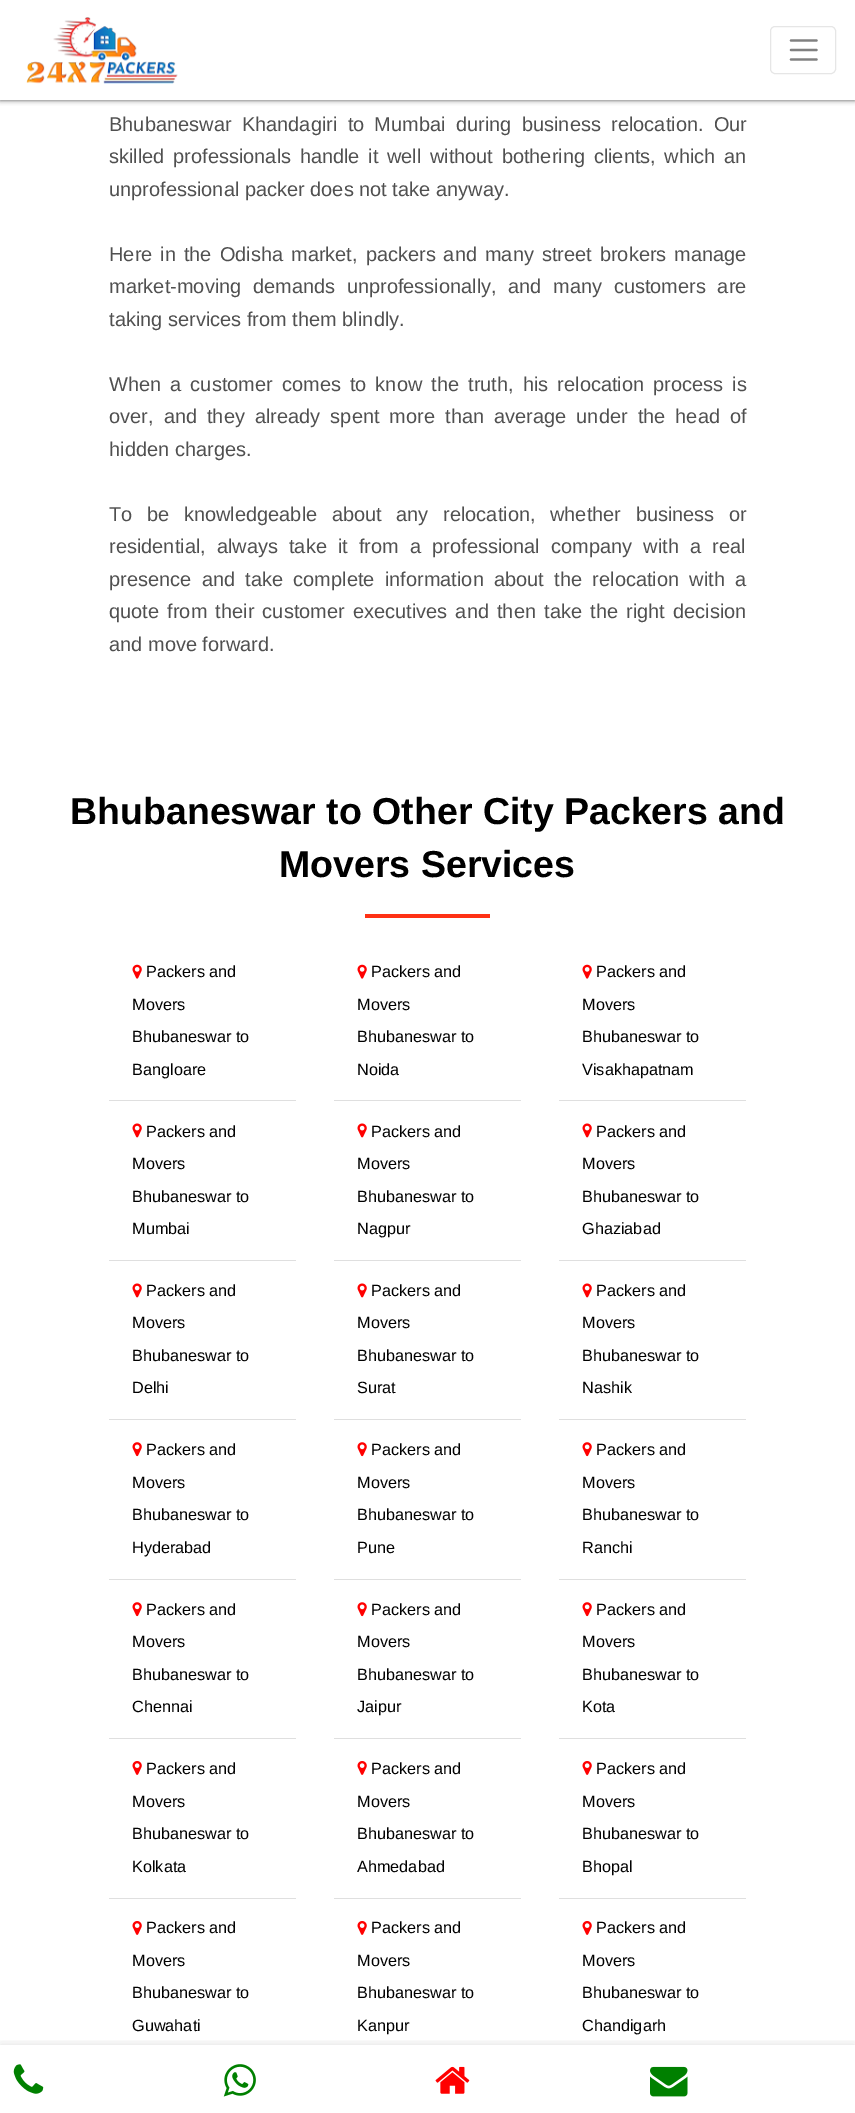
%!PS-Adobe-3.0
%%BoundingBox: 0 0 855 2113
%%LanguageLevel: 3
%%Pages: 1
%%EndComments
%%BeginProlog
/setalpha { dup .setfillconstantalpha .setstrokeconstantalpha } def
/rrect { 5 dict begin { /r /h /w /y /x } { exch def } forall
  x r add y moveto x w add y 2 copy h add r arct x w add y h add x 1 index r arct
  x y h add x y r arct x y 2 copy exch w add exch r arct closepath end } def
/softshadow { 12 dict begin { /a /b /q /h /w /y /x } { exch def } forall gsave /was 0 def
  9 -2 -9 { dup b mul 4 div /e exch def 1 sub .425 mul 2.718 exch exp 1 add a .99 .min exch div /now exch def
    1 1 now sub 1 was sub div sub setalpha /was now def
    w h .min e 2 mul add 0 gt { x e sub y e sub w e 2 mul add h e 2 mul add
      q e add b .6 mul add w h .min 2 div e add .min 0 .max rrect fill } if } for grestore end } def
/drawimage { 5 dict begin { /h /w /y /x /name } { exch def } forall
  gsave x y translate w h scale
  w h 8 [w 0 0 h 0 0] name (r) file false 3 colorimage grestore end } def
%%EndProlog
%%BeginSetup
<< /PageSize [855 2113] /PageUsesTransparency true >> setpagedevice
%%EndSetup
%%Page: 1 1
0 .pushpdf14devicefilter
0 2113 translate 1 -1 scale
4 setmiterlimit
1 setgray
0 0 855 2113 rectfill
0.314 setgray
0 0 855 100 0 2.5 1 softshadow
1 setgray
0 0 855 100 rectfill
(images/1.raw) 26 17 152 67 drawimage
0.902 setgray
770.5 26.5 65 47 4.5 rrect stroke
0.502 setgray
2.3 setlinewidth
1 setlinecap
newpath 791 40.5 moveto 816.5 40.5 lineto 791 50 moveto 816.5 50 lineto 791 59.5 moveto 816.5 59.5 lineto stroke
1 0.192 0.082 setrgbcolor
365 914 125 4 rectfill
(images/2.raw) 132 964 10 15 drawimage
0.875 setgray
109 1100 187 1 rectfill
(images/3.raw) 132 1123 10 15 drawimage
109 1260 187 1 rectfill
(images/3.raw) 132 1283 10 15 drawimage
109 1419 187 1 rectfill
(images/4.raw) 132 1442 10 15 drawimage
109 1579 187 1 rectfill
(images/4.raw) 132 1602 10 15 drawimage
109 1738 187 1 rectfill
(images/5.raw) 132 1761 10 14 drawimage
109 1898 187 1 rectfill
(images/5.raw) 132 1921 10 14 drawimage
(images/2.raw) 357 964 10 15 drawimage
334 1100 187 1 rectfill
(images/3.raw) 357 1123 10 15 drawimage
334 1260 187 1 rectfill
(images/3.raw) 357 1283 10 15 drawimage
334 1419 187 1 rectfill
(images/4.raw) 357 1442 10 15 drawimage
334 1579 187 1 rectfill
(images/4.raw) 357 1602 10 15 drawimage
334 1738 187 1 rectfill
(images/5.raw) 357 1761 10 14 drawimage
334 1898 187 1 rectfill
(images/5.raw) 357 1921 10 14 drawimage
(images/2.raw) 582 964 10 15 drawimage
559 1100 187 1 rectfill
(images/3.raw) 582 1123 10 15 drawimage
559 1260 187 1 rectfill
(images/3.raw) 582 1283 10 15 drawimage
559 1419 187 1 rectfill
(images/4.raw) 582 1442 10 15 drawimage
559 1579 187 1 rectfill
(images/4.raw) 582 1602 10 15 drawimage
559 1738 187 1 rectfill
(images/5.raw) 582 1761 10 14 drawimage
559 1898 187 1 rectfill
(images/5.raw) 582 1921 10 14 drawimage
gsave
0 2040 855 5 rectclip
0 setgray
0 2045 855 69 0 5.5 0.12 softshadow
grestore
(images/6.raw) 13 2064 31 30 drawimage
(images/7.raw) 223 2064 33 33 drawimage
(images/8.raw) 435 2066 35 28 drawimage
(images/9.raw) 650 2066 38 31 drawimage
/LiberationSans-Regular [20 0 0 -20 0 0] selectfont
0.314 setgray
109 131 moveto 4.75 0 32 (Bhubaneswar Khandagiri to Mumbai during business relocation. Our) widthshow
109 163 moveto 3 0 32 (skilled professionals handle it well without bothering clients, which an) widthshow
109 196 moveto (unprofessional packer does not take anyway.) show
109 261 moveto 2.4 0 32 (Here in the Odisha market, packers and many street brokers manage) widthshow
109 293 moveto 6 0 32 (market-moving demands unprofessionally, and many customers are) widthshow
109 326 moveto (taking services from them blindly.) show
109 391 moveto 3.5 0 32 (When a customer comes to know the truth, his relocation process is) widthshow
109 423 moveto 4.5 0 32 (over, and they already spent more than average under the head of) widthshow
109 456 moveto (hidden charges.) show
109 521 moveto 9 0 32 (To be knowledgeable about any relocation, whether business or) widthshow
109 553 moveto 5.5 0 32 (residential, always take it from a professional company with a real) widthshow
109 586 moveto 4.75 0 32 (presence and take complete information about the relocation with a) widthshow
109 618 moveto 2.6 0 32 (quote from their customer executives and then take the right decision) widthshow
109 651 moveto (and move forward.) show
/LiberationSans-Bold [37.5 0 0 -37.5 0 0] selectfont
0 setgray
70 824 moveto (Bhubaneswar to Other City Packers and) show
279 877 moveto (Movers Services) show
/LiberationSans-Regular [16.25 0 0 -16.25 0 0] selectfont
146 977 moveto (Packers and) show
132 1010 moveto (Movers) show
132 1042 moveto (Bhubaneswar to) show
132 1075 moveto (Bangloare) show
146 1137 moveto (Packers and) show
132 1169 moveto (Movers) show
132 1202 moveto (Bhubaneswar to) show
132 1234 moveto (Mumbai) show
146 1296 moveto (Packers and) show
132 1328 moveto (Movers) show
132 1361 moveto (Bhubaneswar to) show
132 1393 moveto (Delhi) show
146 1455 moveto (Packers and) show
132 1488 moveto (Movers) show
132 1520 moveto (Bhubaneswar to) show
132 1553 moveto (Hyderabad) show
146 1615 moveto (Packers and) show
132 1647 moveto (Movers) show
132 1680 moveto (Bhubaneswar to) show
132 1712 moveto (Chennai) show
146 1774 moveto (Packers and) show
132 1807 moveto (Movers) show
132 1839 moveto (Bhubaneswar to) show
132 1872 moveto (Kolkata) show
146 1933 moveto (Packers and) show
132 1966 moveto (Movers) show
132 1998 moveto (Bhubaneswar to) show
132 2031 moveto (Guwahati) show
371 977 moveto (Packers and) show
357 1010 moveto (Movers) show
357 1042 moveto (Bhubaneswar to) show
357 1075 moveto (Noida) show
371 1137 moveto (Packers and) show
357 1169 moveto (Movers) show
357 1202 moveto (Bhubaneswar to) show
357 1234 moveto (Nagpur) show
371 1296 moveto (Packers and) show
357 1328 moveto (Movers) show
357 1361 moveto (Bhubaneswar to) show
357 1393 moveto (Surat) show
371 1455 moveto (Packers and) show
357 1488 moveto (Movers) show
357 1520 moveto (Bhubaneswar to) show
357 1553 moveto (Pune) show
371 1615 moveto (Packers and) show
357 1647 moveto (Movers) show
357 1680 moveto (Bhubaneswar to) show
357 1712 moveto (Jaipur) show
371 1774 moveto (Packers and) show
357 1807 moveto (Movers) show
357 1839 moveto (Bhubaneswar to) show
357 1872 moveto (Ahmedabad) show
371 1933 moveto (Packers and) show
357 1966 moveto (Movers) show
357 1998 moveto (Bhubaneswar to) show
357 2031 moveto (Kanpur) show
596 977 moveto (Packers and) show
582 1010 moveto (Movers) show
582 1042 moveto (Bhubaneswar to) show
582 1075 moveto (Visakhapatnam) show
596 1137 moveto (Packers and) show
582 1169 moveto (Movers) show
582 1202 moveto (Bhubaneswar to) show
582 1234 moveto (Ghaziabad) show
596 1296 moveto (Packers and) show
582 1328 moveto (Movers) show
582 1361 moveto (Bhubaneswar to) show
582 1393 moveto (Nashik) show
596 1455 moveto (Packers and) show
582 1488 moveto (Movers) show
582 1520 moveto (Bhubaneswar to) show
582 1553 moveto (Ranchi) show
596 1615 moveto (Packers and) show
582 1647 moveto (Movers) show
582 1680 moveto (Bhubaneswar to) show
582 1712 moveto (Kota) show
596 1774 moveto (Packers and) show
582 1807 moveto (Movers) show
582 1839 moveto (Bhubaneswar to) show
582 1872 moveto (Bhopal) show
596 1933 moveto (Packers and) show
582 1966 moveto (Movers) show
582 1998 moveto (Bhubaneswar to) show
582 2031 moveto (Chandigarh) show
.poppdf14devicefilter showpage
%%EOF
